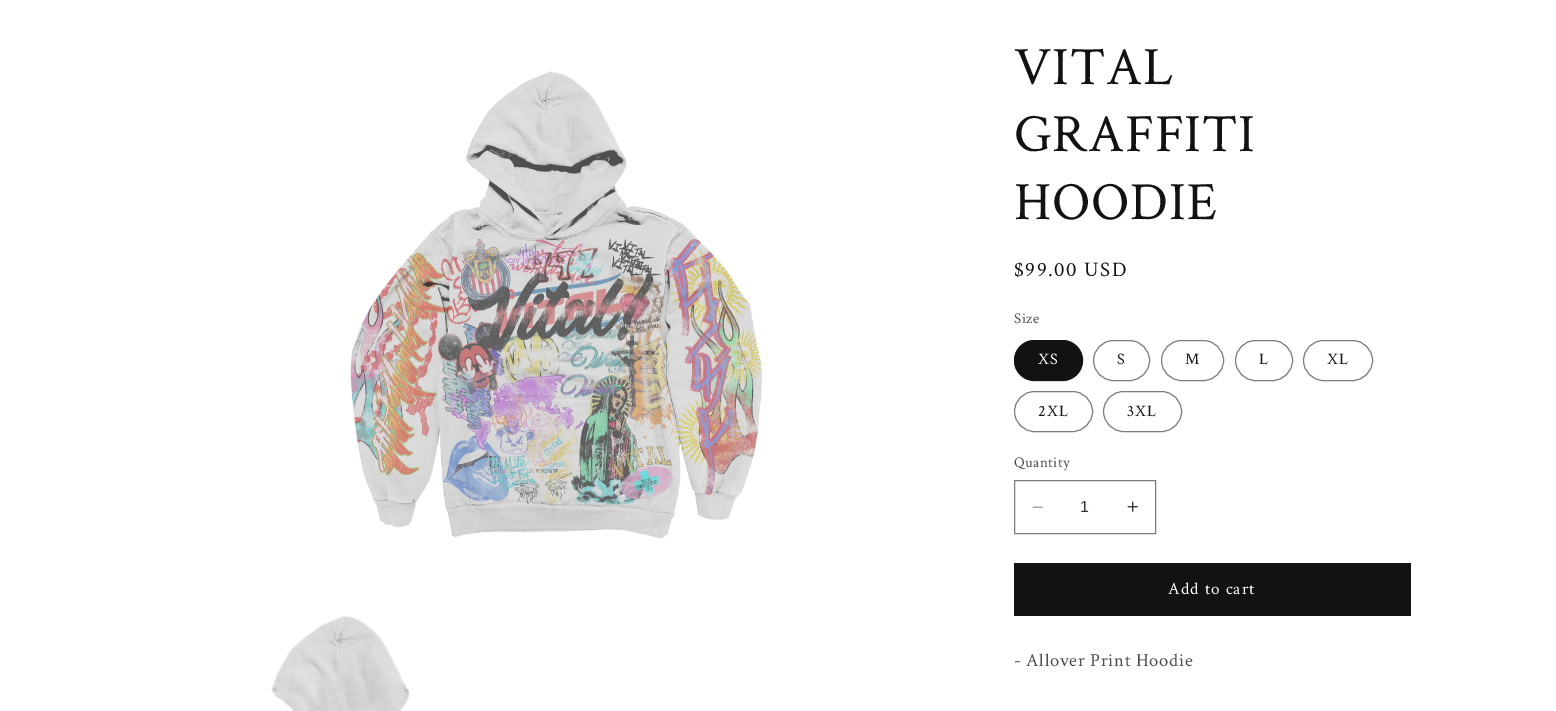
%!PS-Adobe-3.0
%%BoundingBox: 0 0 1556 711
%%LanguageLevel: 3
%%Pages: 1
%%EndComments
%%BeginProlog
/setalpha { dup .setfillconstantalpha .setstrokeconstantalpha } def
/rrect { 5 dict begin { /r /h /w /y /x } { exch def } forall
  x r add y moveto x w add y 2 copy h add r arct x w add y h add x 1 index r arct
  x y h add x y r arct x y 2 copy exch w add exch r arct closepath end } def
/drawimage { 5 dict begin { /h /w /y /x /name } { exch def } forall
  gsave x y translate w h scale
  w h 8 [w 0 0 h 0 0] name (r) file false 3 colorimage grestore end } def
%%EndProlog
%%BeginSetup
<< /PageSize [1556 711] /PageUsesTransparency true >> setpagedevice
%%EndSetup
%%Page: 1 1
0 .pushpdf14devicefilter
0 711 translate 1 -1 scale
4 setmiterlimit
1 setgray
0 0 1556 711 rectfill
(images/1.raw) 348 71 416 468 drawimage
(images/2.raw) 271 615 139 96 drawimage
0.071 setgray
1014 340 69 41 20.5 rrect fill
0.55 setalpha
1014.5 340.5 68 40 20 rrect stroke
1 setalpha
0.49 setgray
1093.5 340.5 56 40 20 rrect stroke
1161.5 340.5 62 40 20 rrect stroke
1235.5 340.5 57 40 20 rrect stroke
1303.5 340.5 69 40 20 rrect stroke
1014.5 391.5 78 40 20 rrect stroke
1103.5 391.5 78 40 20 rrect stroke
(images/3.raw) 1032 506 11 2 drawimage
(images/4.raw) 1127 501 11 11 drawimage
1014.5 480.5 141 53 rectstroke
0.071 setgray
1014 563 397 53 rectfill
/CrimsonText-Regular [54 0 0 -54 0 0] selectfont
1014 84 moveto 0.75 0 (VITAL) ashow
1014 151 moveto 0.75 0 (GRAFFITI) ashow
1014 219 moveto 0.75 0 (HOODIE) ashow
/CrimsonText-Regular [20.75 0 0 -20.75 0 0] selectfont
1014 276 moveto 1.5 0 ($99.00 USD) ashow
/CrimsonText-Regular [15 0 0 -15 0 0] selectfont
0.302 setgray
1014 323 moveto 0.5 0 (Size) ashow
/CrimsonText-Regular [16 0 0 -16 0 0] selectfont
1 setgray
1038 364 moveto 1.1 0 (XS) ashow
0.071 setgray
1117 364 moveto 1.1 0 (S) ashow
1185 364 moveto 1.1 0 (M) ashow
1259 364 moveto 1.1 0 (L) ashow
1327 364 moveto 1.1 0 (XL) ashow
1038 416 moveto 1.1 0 (2XL) ashow
1127 416 moveto 1.1 0 (3XL) ashow
/CrimsonText-Regular [15 0 0 -15 0 0] selectfont
0.302 setgray
1014 467 moveto 0.5 0 (Quantity) ashow
/LiberationSans-Regular [16 0 0 -16 0 0] selectfont
0.212 setgray
1080 512 moveto (1) show
/CrimsonText-Regular [17.25 0 0 -17.25 0 0] selectfont
1 setgray
1168 594 moveto 1.1 0 (Add to cart) ashow
/CrimsonText-Regular [18.5 0 0 -18.5 0 0] selectfont
0.302 setgray
1014 666 moveto 0.7 0 (- Allover Print Hoodie) ashow
.poppdf14devicefilter showpage
%%EOF
